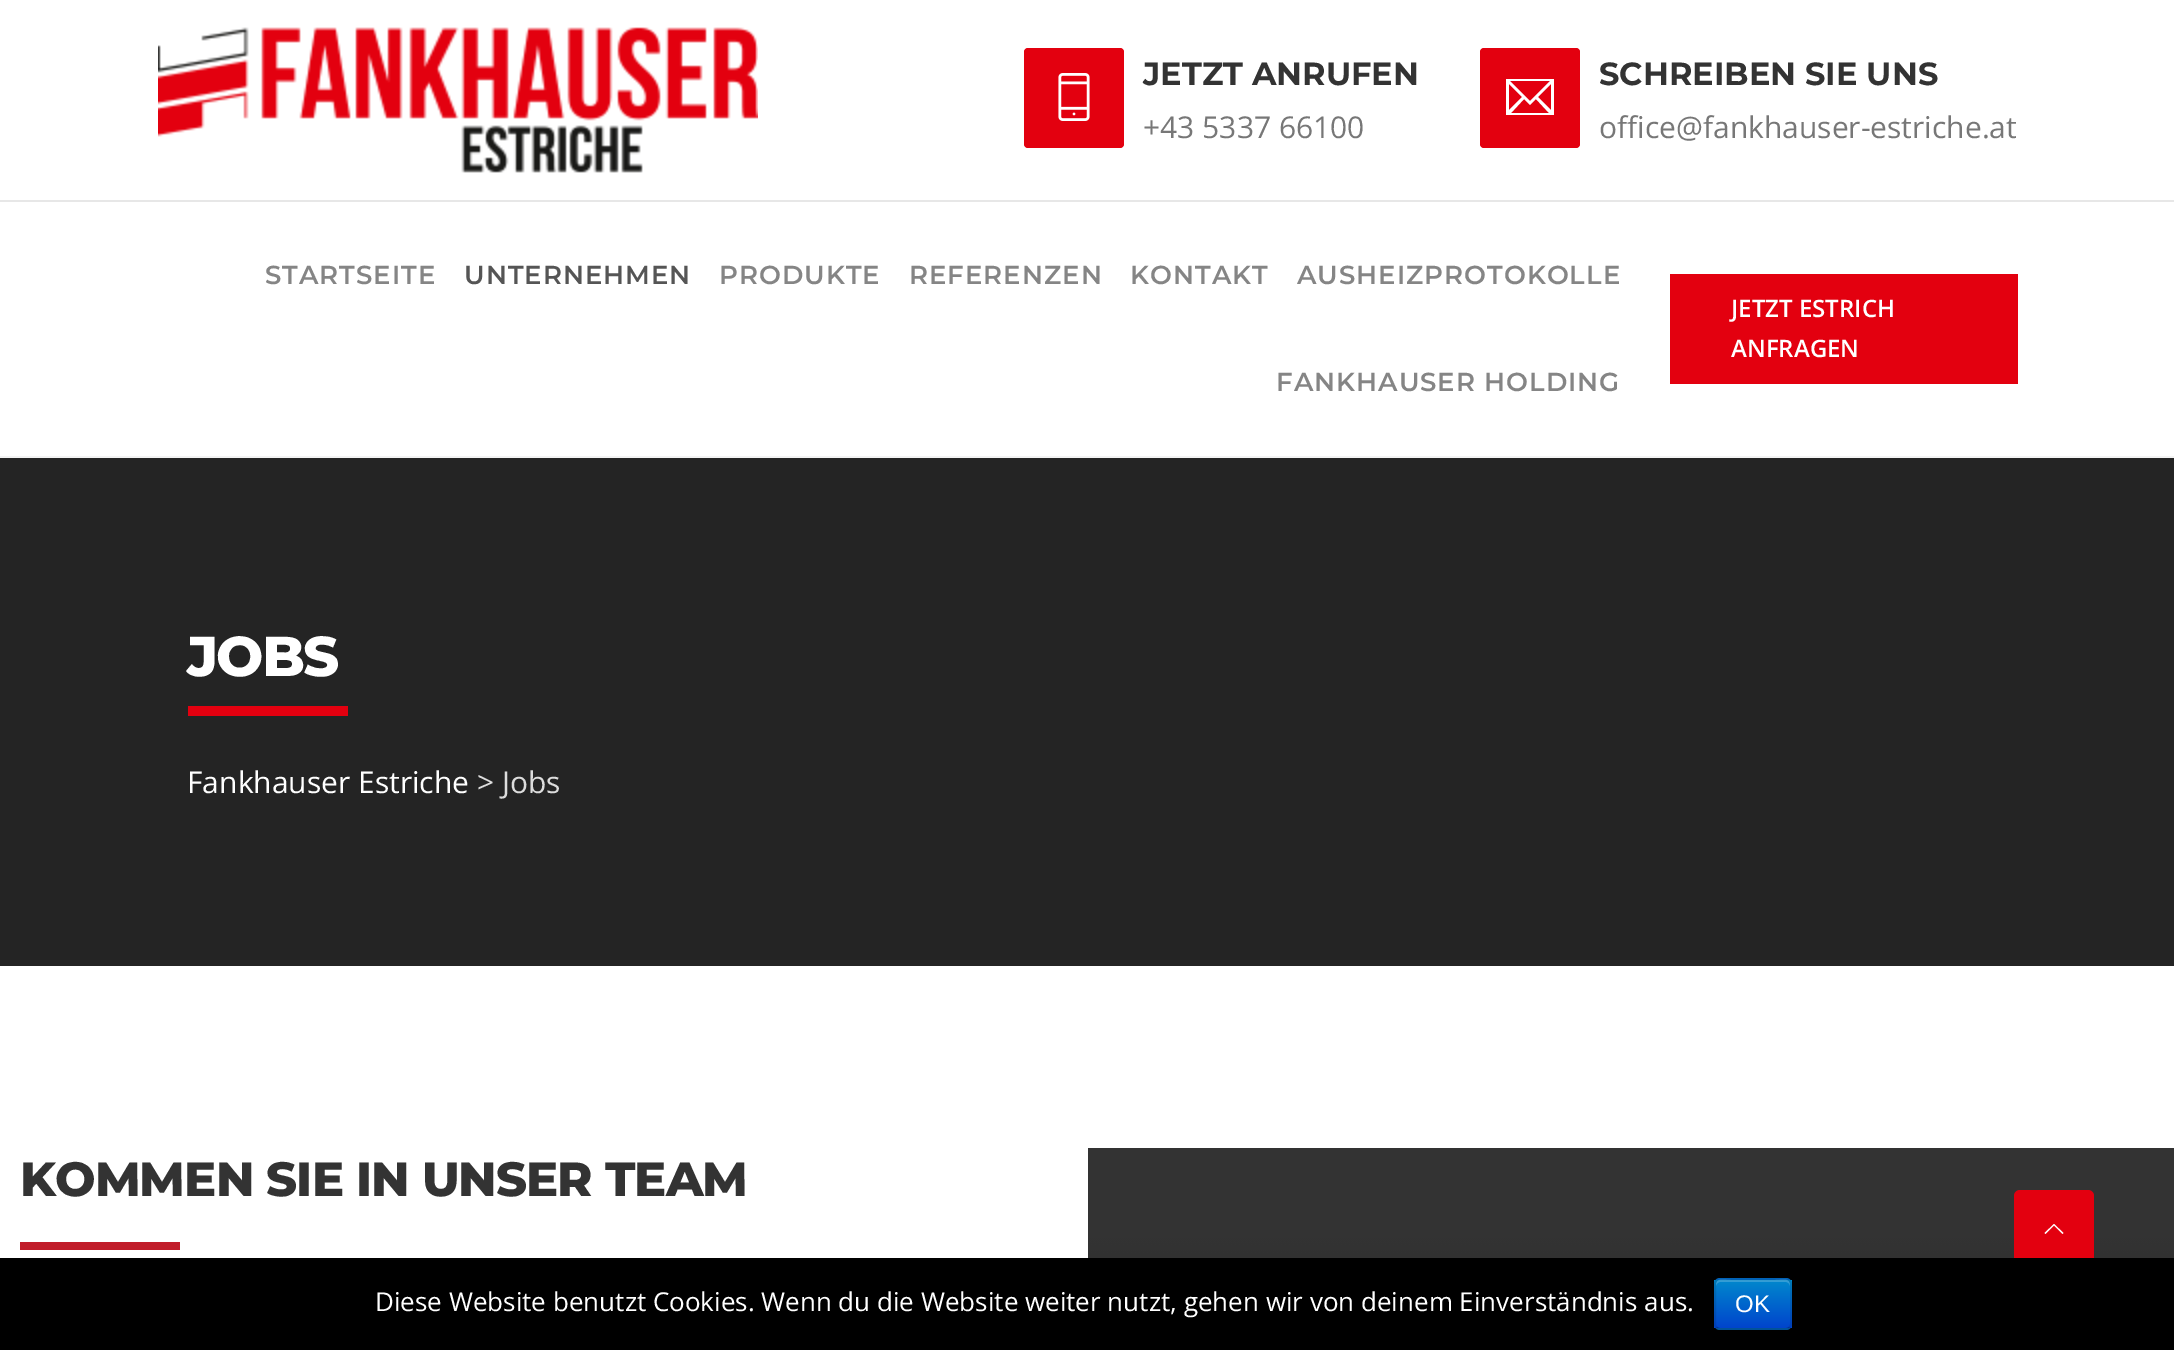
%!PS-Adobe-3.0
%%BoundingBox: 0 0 2174 1350
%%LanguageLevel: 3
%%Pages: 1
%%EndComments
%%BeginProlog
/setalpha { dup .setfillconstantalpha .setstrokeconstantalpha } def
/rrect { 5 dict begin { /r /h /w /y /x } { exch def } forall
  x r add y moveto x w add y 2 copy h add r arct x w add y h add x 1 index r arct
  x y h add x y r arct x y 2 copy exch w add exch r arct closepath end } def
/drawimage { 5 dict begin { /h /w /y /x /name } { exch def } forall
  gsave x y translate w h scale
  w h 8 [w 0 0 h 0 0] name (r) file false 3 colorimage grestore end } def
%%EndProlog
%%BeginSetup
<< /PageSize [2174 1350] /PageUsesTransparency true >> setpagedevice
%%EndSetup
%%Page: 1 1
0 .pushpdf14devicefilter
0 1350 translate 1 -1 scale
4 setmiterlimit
1 setgray
0 0 2174 1350 rectfill
0.906 setgray
0 200 2174 2 rectfill
(images/1.raw) 158 27 600 146 drawimage
0.89 0 0.059 setrgbcolor
1024 48 100 100 4 rrect fill
(images/2.raw) 1058 73 32 48 drawimage
1480 48 100 100 4 rrect fill
1 setgray
newpath 1506 79 moveto 1506 115 lineto 1554 115 lineto 1554 79 lineto closepath 1530 101 moveto 1510 81 lineto 1550 81 lineto closepath 1522 97 moveto 1509 110 lineto 1509 84 lineto closepath 1524 99 moveto 1530 105 lineto 1536 99 lineto 1549 113 lineto 1511 113 lineto closepath 1538 97 moveto 1551 84 lineto 1551 110 lineto closepath fill
0.953 setgray
0 456 2174 2 rectfill
0.89 0 0.059 setrgbcolor
1670 274 348 110 rectfill
0.141 setgray
0 458 2174 508 rectfill
0.89 0 0.059 setrgbcolor
188 706 160 10 rectfill
0.757 0.114 0.165 setrgbcolor
20 1242 160 8 rectfill
(images/3.raw) 1088 1148 1086 110 drawimage
0.89 0 0.059 setrgbcolor
2014 1190 80 80 6 rrect fill
1 setgray
newpath 2063.5 1233 moveto 2062.5 1234 lineto 2054 1225.5 lineto 2045.5 1234 lineto 2044.5 1233 lineto 2054 1224 lineto closepath fill
0 setgray
0 1258 2174 92 rectfill
0 0.427 0.8 setrgbcolor
1714 1278 78 52 6 rrect fill
gsave
1714 1278 78 52 6 rrect clip newpath
gsave newpath 1714 1280 moveto 1792 1280 lineto 1792 1328 lineto 1714 1328 lineto closepath clip newpath
<< /ShadingType 2 /ColorSpace /DeviceRGB /Coords [1753 1280 1753 1328] /Extend [true true] /Function << /FunctionType 2 /Domain [0 1] /C0 [0 0.533 0.8] /C1 [0 0.267 0.8] /N 1 >> >> shfill grestore
grestore
0.2 setalpha
1 setgray
newpath 1720 1282 moveto 1786 1282 lineto 1788 1282 1790 1284 1790 1286 curveto 1790 1277 1783 1280 1775 1280 curveto 1731 1280 lineto 1723 1280 1716 1277 1716 1286 curveto 1716 1284 1718 1282 1720 1282 curveto closepath fill
0.25 setalpha
0 setgray
2 setlinewidth
newpath 1789.5 1327.5 moveto 1788.5 1328.5 1787.5 1329 1786 1329 curveto 1720 1329 lineto 1718.5 1329 1717.5 1328.5 1716.5 1327.5 curveto stroke
0.1 setalpha
newpath 1716.5 1327.5 moveto 1715.5 1326.5 1715 1325.5 1715 1324 curveto 1715 1284 lineto 1715 1282.5 1715.5 1281.5 1716.5 1280.5 curveto 1717.5 1279.5 1718.5 1279 1720 1279 curveto 1786 1279 lineto 1787.5 1279 1788.5 1279.5 1789.5 1280.5 curveto 1790.5 1281.5 1791 1282.5 1791 1284 curveto 1791 1324 lineto 1791 1325.5 1790.5 1326.5 1789.5 1327.5 curveto stroke
/Montserrat-Bold [32 0 0 -32 0 0] selectfont
1 setalpha
0.2 setgray
1143 85 moveto (JETZT ANRUFEN) show
/OpenSans-Regular [30 0 0 -30 0 0] selectfont
0.467 setgray
1143 138 moveto (+43 5337 66100) show
/Montserrat-Bold [32 0 0 -32 0 0] selectfont
0.2 setgray
1599 85 moveto (SCHREIBEN SIE UNS) show
/OpenSans-Regular [30 0 0 -30 0 0] selectfont
0.467 setgray
1599 138 moveto (office@fankhauser-estriche.at) show
/Montserrat-SemiBold [26 0 0 -26 0 0] selectfont
0.522 setgray
265 284 moveto 1 0 (STARTSEITE) ashow
0.333 setgray
464 284 moveto 1 0 (UNTERNEHMEN) ashow
0.522 setgray
719 284 moveto 1 0 (PRODUKTE) ashow
909 284 moveto 1 0 (REFERENZEN) ashow
1130 284 moveto 1 0 (KONTAKT) ashow
1297 284 moveto 1 0 (AUSHEIZPROTOKOLLE) ashow
1276 391 moveto 1 0 (FANKHAUSER HOLDING) ashow
/OpenSans-SemiBold [24 0 0 -24 0 0] selectfont
1 setgray
1731 317 moveto (JETZT ESTRICH) show
1731 357 moveto (ANFRAGEN) show
/Montserrat-ExtraBold [56 0 0 -56 0 0] selectfont
187 676 moveto -2 0 (JOBS) ashow
/OpenSans-Regular [30 0 0 -30 0 0] selectfont
187 793 moveto (Fankhauser Estriche) show
0.867 setgray
477 793 moveto (> Jobs) show
/Montserrat-ExtraBold [48 0 0 -48 0 0] selectfont
0.2 setgray
20 1196 moveto -1 0 (KOMMEN SIE IN UNSER TEAM) ashow
/OpenSans-Regular [26 0 0 -26 0 0] selectfont
1 setgray
375 1311 moveto (Diese Website benutzt Cookies. Wenn du die Website weiter nutzt, gehen wir von deinem Einverständnis aus.) show
/LiberationSans-Regular [24 0 0 -24 0 0] selectfont
1735 1312 moveto (OK) show
.poppdf14devicefilter showpage
%%EOF
